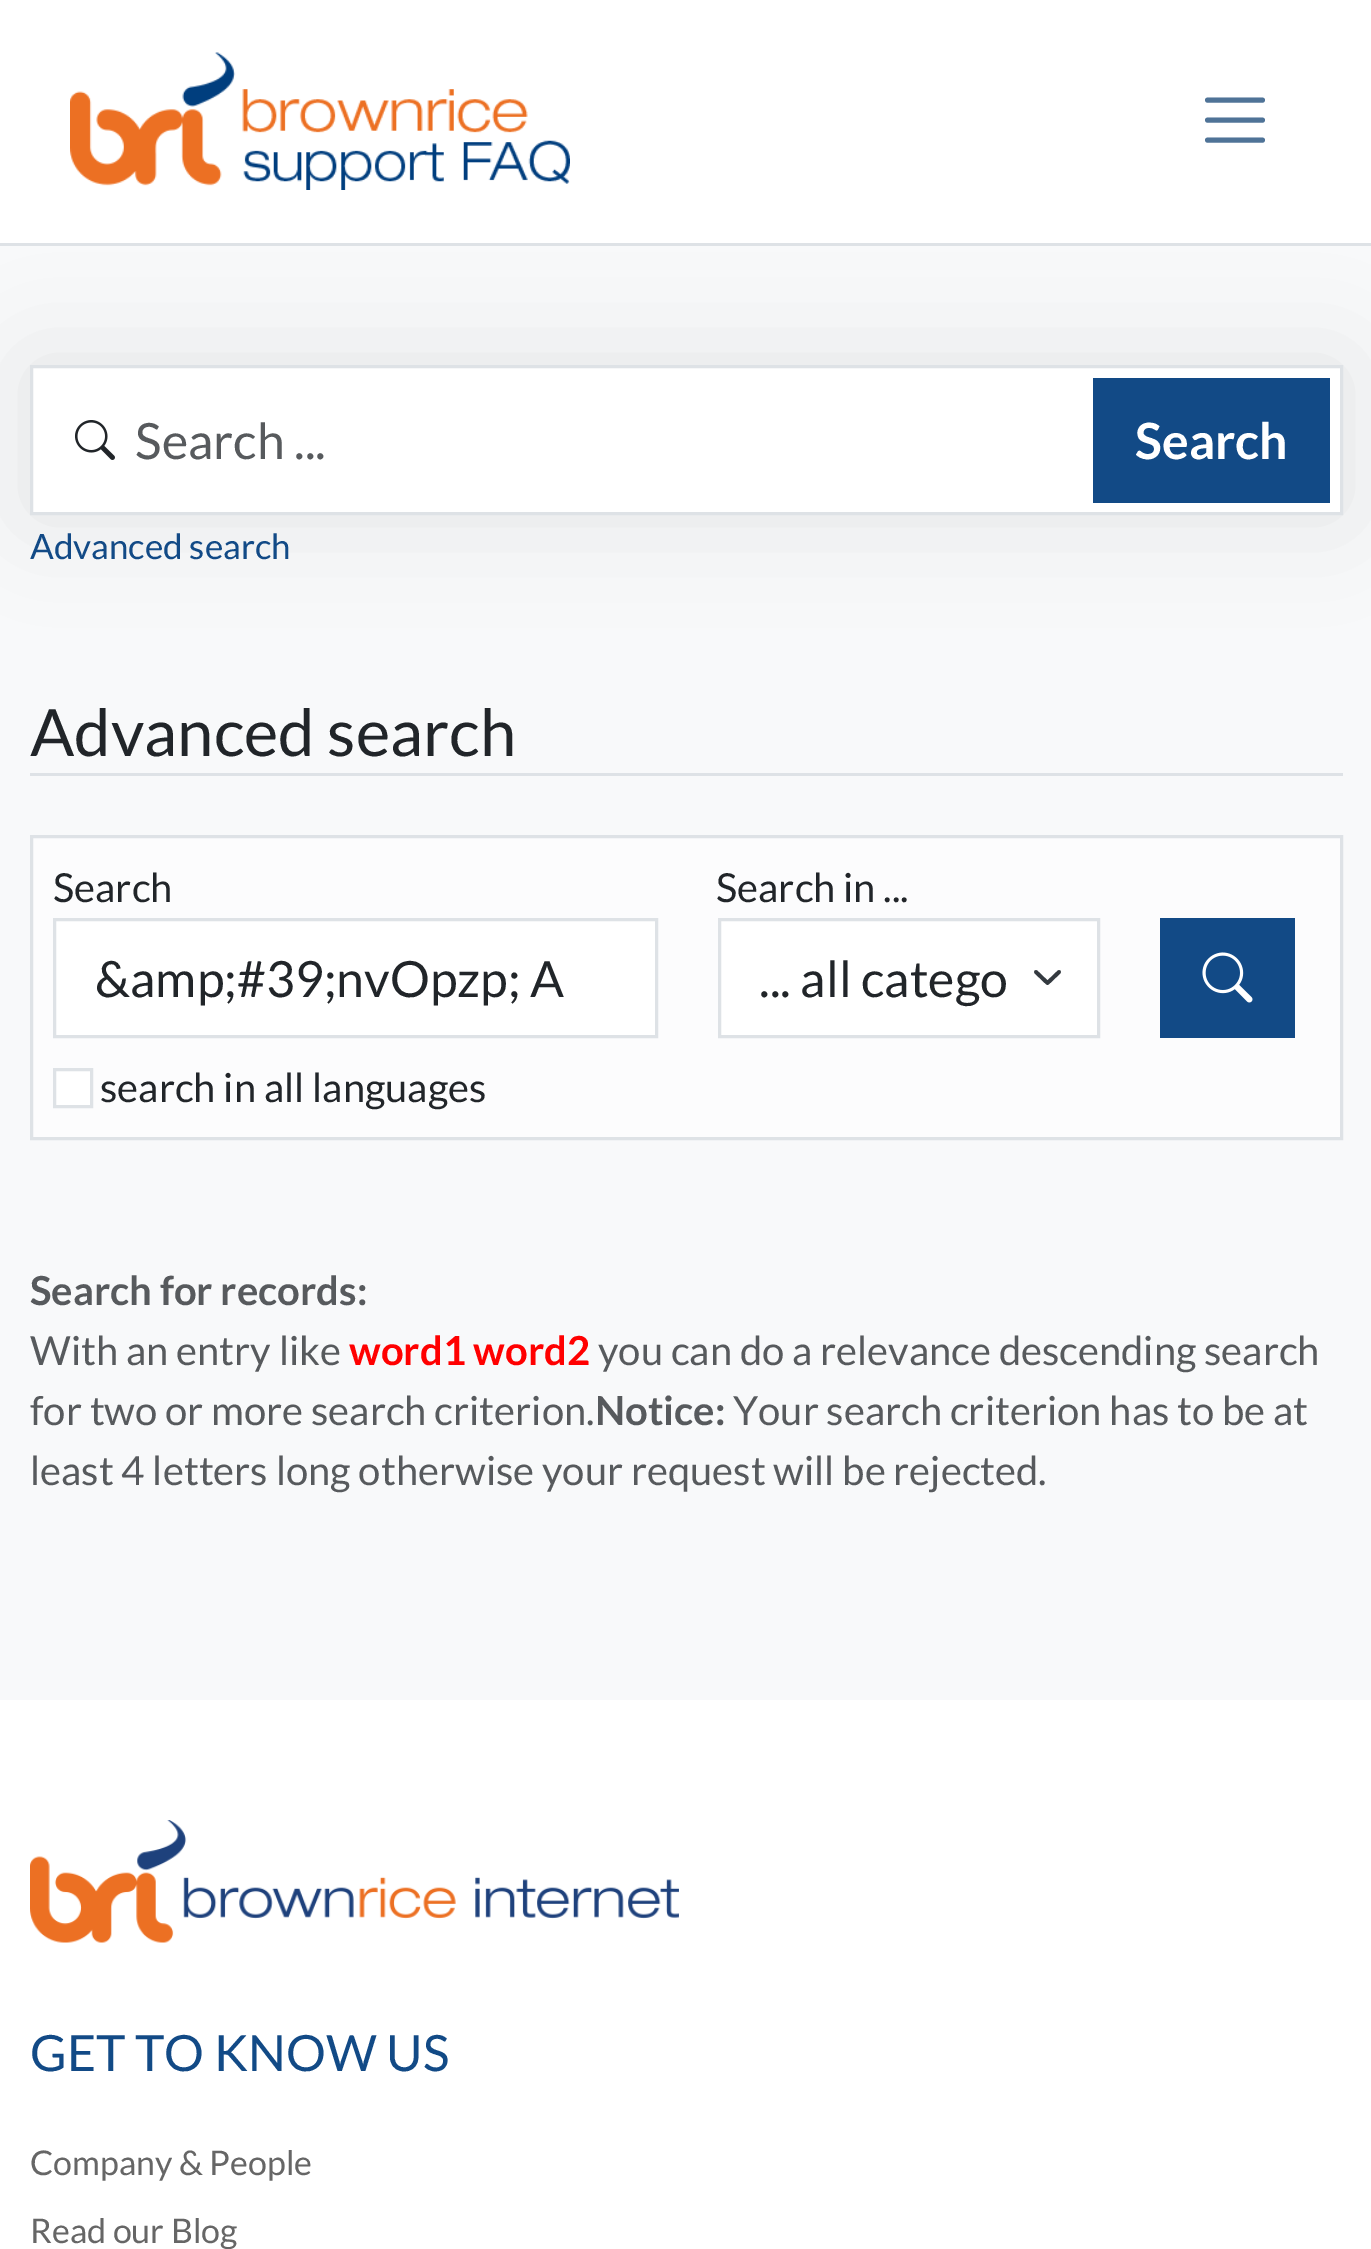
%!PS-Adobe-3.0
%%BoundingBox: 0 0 1371 2249
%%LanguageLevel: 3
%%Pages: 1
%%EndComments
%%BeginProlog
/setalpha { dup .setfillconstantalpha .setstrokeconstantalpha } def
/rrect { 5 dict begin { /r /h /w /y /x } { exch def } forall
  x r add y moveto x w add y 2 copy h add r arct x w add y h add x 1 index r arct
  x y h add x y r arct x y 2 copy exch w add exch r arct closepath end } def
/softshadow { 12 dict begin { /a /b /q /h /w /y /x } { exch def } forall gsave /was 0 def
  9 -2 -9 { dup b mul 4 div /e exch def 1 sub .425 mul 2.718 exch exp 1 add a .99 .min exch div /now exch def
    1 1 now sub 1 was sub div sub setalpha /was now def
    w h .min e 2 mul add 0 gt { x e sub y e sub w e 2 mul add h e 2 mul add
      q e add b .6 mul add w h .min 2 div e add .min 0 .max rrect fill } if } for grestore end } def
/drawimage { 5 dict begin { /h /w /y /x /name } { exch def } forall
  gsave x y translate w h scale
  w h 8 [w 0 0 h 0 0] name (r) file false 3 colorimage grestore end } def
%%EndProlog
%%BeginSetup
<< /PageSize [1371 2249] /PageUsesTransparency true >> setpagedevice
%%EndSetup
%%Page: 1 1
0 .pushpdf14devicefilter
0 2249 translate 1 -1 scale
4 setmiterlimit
0.973 0.976 0.98 setrgbcolor
0 0 1371 2249 rectfill
1 setgray
0 0 1371 243 rectfill
0.871 0.886 0.902 setrgbcolor
0 243 1371 3 rectfill
(images/1.raw) 70 52 500 138 drawimage
0.31 0.451 0.592 setrgbcolor
5 setlinewidth
1 setlinecap
newpath 1207.5 100 moveto 1262.5 100 lineto 1207.5 120 moveto 1262.5 120 lineto 1207.5 140 moveto 1262.5 140 lineto stroke
0.2 setgray
30 365 1313 150 0 50 0.1 softshadow
1 setgray
newpath 31.5 366.5 moveto 1341.5 366.5 lineto 1341.5 513.5 lineto 31.5 513.5 lineto closepath gsave fill grestore
0.871 0.886 0.902 setrgbcolor
3 setlinewidth
0 setlinecap
stroke
(images/2.raw) 75 420 40 40 drawimage
0.071 0.29 0.525 setrgbcolor
1093 378 237 125 rectfill
0.871 0.886 0.902 setrgbcolor
30 773 1313 3 rectfill
0.988 0.988 0.992 setrgbcolor
newpath 31.5 836.5 moveto 1341.5 836.5 lineto 1341.5 1138.5 lineto 31.5 1138.5 lineto closepath gsave fill grestore
0.871 0.886 0.902 setrgbcolor
stroke
1 setgray
newpath 54.5 919.5 moveto 656.5 919.5 lineto 656.5 1036.5 lineto 54.5 1036.5 lineto closepath gsave fill grestore
0.871 0.886 0.902 setrgbcolor
stroke
1 setgray
721 921 376 114 rectfill
0.204 0.227 0.251 setrgbcolor
3.8 setlinewidth
1 setlinecap
1 setlinejoin
newpath 1036 972 moveto 1047.5 983 lineto 1059 972 lineto stroke
0.871 0.886 0.902 setrgbcolor
3 setlinewidth
0 setlinecap
0 setlinejoin
719.5 919.5 379 117 rectstroke
0.071 0.29 0.525 setrgbcolor
1160 918 135 120 rectfill
(images/3.raw) 1202 952 51 51 drawimage
1 setgray
newpath 54.5 1069.5 moveto 91.5 1069.5 lineto 91.5 1106.5 lineto 54.5 1106.5 lineto closepath gsave fill grestore
0.871 0.886 0.902 setrgbcolor
stroke
1 setgray
0 1700 1371 549 rectfill
(images/4.raw) 30 1820 649 123 drawimage
/Lato-Regular [50 0 0 -50 0 0] selectfont
0.341 0.353 0.365 setrgbcolor
135 459 moveto (Search ...) show
/Lato-Bold [50 0 0 -50 0 0] selectfont
1 setgray
1135 459 moveto (Search) show
/Lato-Regular [35 0 0 -35 0 0] selectfont
0.071 0.29 0.525 setrgbcolor
30 559 moveto (Advanced search) show
/Lato-Regular [65.25 0 0 -65.25 0 0] selectfont
0.129 0.145 0.161 setrgbcolor
30 756 moveto (Advanced search) show
/Lato-Regular [40 0 0 -40 0 0] selectfont
53 902 moveto (Search) show
/Lato-Regular [50 0 0 -50 0 0] selectfont
95 997 moveto (&amp;#39;nvOpzp; A) show
/Lato-Regular [40 0 0 -40 0 0] selectfont
716 902 moveto (Search in ...) show
/Lato-Regular [50 0 0 -50 0 0] selectfont
759 997 moveto (... all catego) show
/Lato-Regular [40 0 0 -40 0 0] selectfont
100 1102 moveto (search in all languages) show
/Lato-Bold [40 0 0 -40 0 0] selectfont
0.341 0.353 0.365 setrgbcolor
30 1305 moveto (Search for records:) show
/Lato-Regular [40 0 0 -40 0 0] selectfont
30 1365 moveto (With an entry like) show
/Lato-Bold [40 0 0 -40 0 0] selectfont
1 0 0 setrgbcolor
349 1365 moveto (word1 word2) show
/Lato-Regular [40 0 0 -40 0 0] selectfont
0.341 0.353 0.365 setrgbcolor
598 1365 moveto (you can do a relevance descending search) show
30 1425 moveto (for two or more search criterion.) show
/Lato-Bold [40 0 0 -40 0 0] selectfont
595 1425 moveto (Notice:) show
/Lato-Regular [40 0 0 -40 0 0] selectfont
733 1425 moveto (Your search criterion has to be at) show
30 1485 moveto (least 4 letters long otherwise your request will be rejected.) show
/Lato-Regular [50 0 0 -50 0 0] selectfont
0.071 0.29 0.525 setrgbcolor
30 2071 moveto (GET TO KNOW US) show
/Lato-Regular [34 0 0 -34 0 0] selectfont
0.4 setgray
30 2175 moveto (Company & People) show
30 2243 moveto (Read our Blog) show
.poppdf14devicefilter showpage
%%EOF
